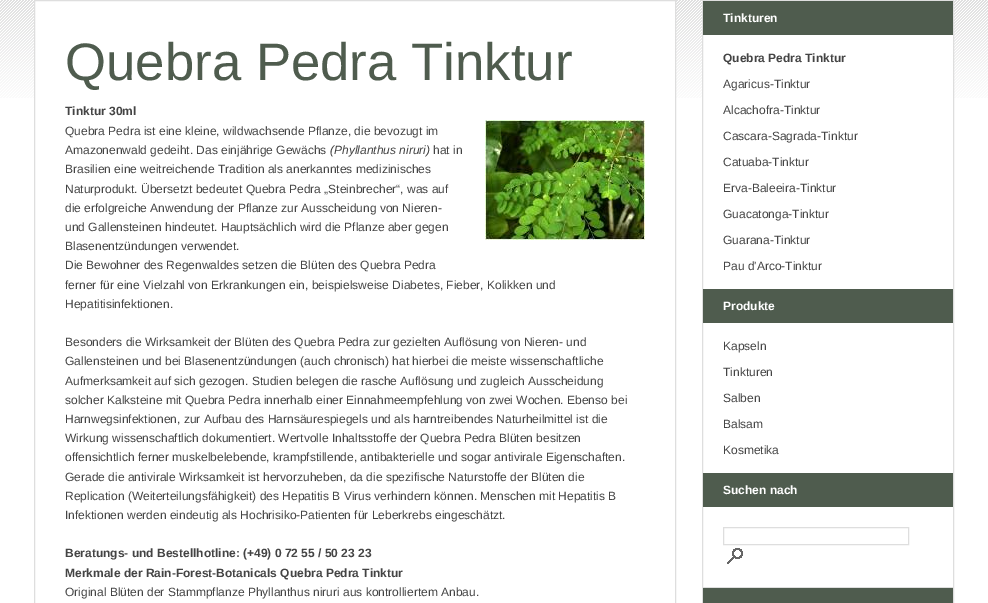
%!PS-Adobe-3.0
%%BoundingBox: 0 0 988 603
%%LanguageLevel: 3
%%Pages: 1
%%EndComments
%%BeginProlog
/drawimage { 5 dict begin { /h /w /y /x /name } { exch def } forall
  gsave x y translate w h scale
  w h 8 [w 0 0 h 0 0] name (r) file false 3 colorimage grestore end } def
%%EndProlog
%%BeginSetup
<< /PageSize [988 603] >> setpagedevice
%%EndSetup
%%Page: 1 1
0 603 translate 1 -1 scale
4 setmiterlimit
1 setgray
0 0 988 603 rectfill
(images/1.raw) 0 0 988 98 drawimage
35 1 640 97 rectfill
0.871 setgray
34.5 0.5 641 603 rectstroke
(images/2.raw) 485 120 160 120 drawimage
1 setgray
703 35 250 63 rectfill
0.871 setgray
702.5 0.5 251 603 rectstroke
0.31 0.361 0.306 setrgbcolor
703 1 250 34 rectfill
703 289 250 34 rectfill
703 473 250 34 rectfill
0.871 setgray
703 587 250 1 rectfill
723.5 527.5 185 17 rectstroke
(images/3.raw) 727 548 16 16 drawimage
0.31 0.361 0.306 setrgbcolor
703 588 250 15 rectfill
/LiberationSans-Regular [52.75 0 0 -52.75 0 0] selectfont
65 80 moveto (Quebra Pedra Tinktur) show
/LiberationSans-Bold [12 0 0 -12 0 0] selectfont
0.267 setgray
65 115 moveto (Tinktur 30ml) show
/LiberationSans-Regular [12 0 0 -12 0 0] selectfont
65 135 moveto (Quebra Pedra ist eine kleine, wildwachsende Pflanze, die bevozugt im) show
65 154 moveto (Amazonenwald gedeiht. Das einjährige Gewächs) show
/LiberationSans-Italic [12 0 0 -12 0 0] selectfont
330 154 moveto (\(Phyllanthus niruri\)) show
/LiberationSans-Regular [12 0 0 -12 0 0] selectfont
433 154 moveto (hat in) show
65 173 moveto (Brasilien eine weitreichende Tradition als anerkanntes medizinisches) show
65 193 moveto (Naturprodukt. Übersetzt bedeutet Quebra Pedra „Steinbrecher“, was auf) show
65 212 moveto (die erfolgreiche Anwendung der Pflanze zur Ausscheidung von Nieren-) show
65 231 moveto (und Gallensteinen hindeutet. Hauptsächlich wird die Pflanze aber gegen) show
65 250 moveto (Blasenentzündungen verwendet.) show
65 269 moveto (Die Bewohner des Regenwaldes setzen die Blüten des Quebra Pedra) show
65 289 moveto (ferner für eine Vielzahl von Erkrankungen ein, beispielsweise Diabetes, Fieber, Kolikken und) show
65 308 moveto (Hepatitisinfektionen.) show
65 346 moveto (Besonders die Wirksamkeit der Blüten des Quebra Pedra zur gezielten Auflösung von Nieren- und) show
65 365 moveto (Gallensteinen und bei Blasenentzündungen \(auch chronisch\) hat hierbei die meiste wissenschaftliche) show
65 385 moveto (Aufmerksamkeit auf sich gezogen. Studien belegen die rasche Auflösung und zugleich Ausscheidung) show
65 404 moveto (solcher Kalksteine mit Quebra Pedra innerhalb einer Einnahmeempfehlung von zwei Wochen. Ebenso bei) show
65 423 moveto (Harnwegsinfektionen, zur Aufbau des Harnsäurespiegels und als harntreibendes Naturheilmittel ist die) show
65 442 moveto (Wirkung wissenschaftlich dokumentiert. Wertvolle Inhaltsstoffe der Quebra Pedra Blüten besitzen) show
65 461 moveto (offensichtlich ferner muskelbelebende, krampfstillende, antibakterielle und sogar antivirale Eigenschaften.) show
65 481 moveto (Gerade die antivirale Wirksamkeit ist hervorzuheben, da die spezifische Naturstoffe der Blüten die) show
65 500 moveto (Replication \(Weiterteilungsfähigkeit\) des Hepatitis B Virus verhindern können. Menschen mit Hepatitis B) show
65 519 moveto (Infektionen werden eindeutig als Hochrisiko-Patienten für Leberkrebs eingeschätzt.) show
/LiberationSans-Bold [12 0 0 -12 0 0] selectfont
65 557 moveto (Beratungs- und Bestellhotline: \(+49\) 0 72 55 / 50 23 23) show
65 577 moveto (Merkmale der Rain-Forest-Botanicals Quebra Pedra Tinktur) show
/LiberationSans-Regular [12 0 0 -12 0 0] selectfont
65 596 moveto (Original Blüten der Stammpflanze Phyllanthus niruri aus kontrolliertem Anbau.) show
/LiberationSans-Bold [12 0 0 -12 0 0] selectfont
1 setgray
723 22 moveto (Tinkturen) show
0.267 setgray
723 62 moveto (Quebra Pedra Tinktur) show
/LiberationSans-Regular [12 0 0 -12 0 0] selectfont
723 88 moveto (Agaricus-Tinktur) show
723 114 moveto (Alcachofra-Tinktur) show
723 140 moveto (Cascara-Sagrada-Tinktur) show
723 166 moveto (Catuaba-Tinktur) show
723 192 moveto (Erva-Baleeira-Tinktur) show
723 218 moveto (Guacatonga-Tinktur) show
723 244 moveto (Guarana-Tinktur) show
723 270 moveto (Pau d'Arco-Tinktur) show
/LiberationSans-Bold [12 0 0 -12 0 0] selectfont
1 setgray
723 310 moveto (Produkte) show
/LiberationSans-Regular [12 0 0 -12 0 0] selectfont
0.267 setgray
723 350 moveto (Kapseln) show
723 376 moveto (Tinkturen) show
723 402 moveto (Salben) show
723 428 moveto (Balsam) show
723 454 moveto (Kosmetika) show
/LiberationSans-Bold [12 0 0 -12 0 0] selectfont
1 setgray
723 494 moveto (Suchen nach) show
showpage
%%EOF
